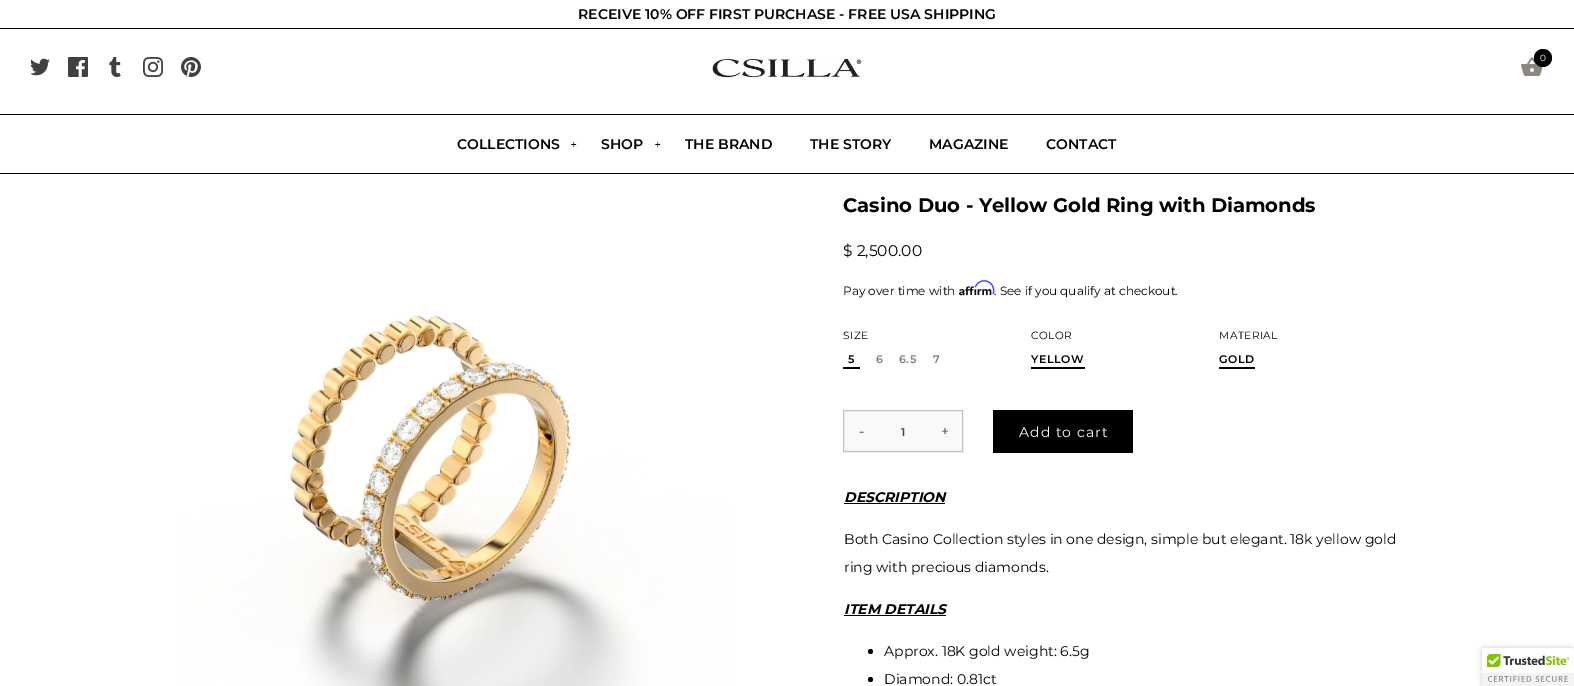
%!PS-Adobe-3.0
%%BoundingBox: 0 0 1574 686
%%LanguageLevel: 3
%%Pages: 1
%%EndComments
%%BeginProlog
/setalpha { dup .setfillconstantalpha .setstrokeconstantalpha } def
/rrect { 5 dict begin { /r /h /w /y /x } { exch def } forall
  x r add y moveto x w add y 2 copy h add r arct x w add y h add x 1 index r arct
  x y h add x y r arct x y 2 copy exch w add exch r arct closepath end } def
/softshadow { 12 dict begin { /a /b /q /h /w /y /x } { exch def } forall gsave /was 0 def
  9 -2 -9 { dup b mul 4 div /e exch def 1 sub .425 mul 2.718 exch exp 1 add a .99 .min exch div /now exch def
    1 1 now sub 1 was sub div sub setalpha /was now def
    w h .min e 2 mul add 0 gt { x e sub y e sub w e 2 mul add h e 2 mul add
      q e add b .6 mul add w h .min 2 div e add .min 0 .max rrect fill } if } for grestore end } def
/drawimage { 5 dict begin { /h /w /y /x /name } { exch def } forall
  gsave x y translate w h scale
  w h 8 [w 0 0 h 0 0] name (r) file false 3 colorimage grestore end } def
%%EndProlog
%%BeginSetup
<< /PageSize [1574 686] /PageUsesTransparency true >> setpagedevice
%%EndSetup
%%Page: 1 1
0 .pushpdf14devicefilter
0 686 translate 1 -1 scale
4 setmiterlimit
1 setgray
0 0 1574 686 rectfill
0 setgray
0 28 1574 1 rectfill
(images/1.raw) 30 58 20 18 drawimage
(images/2.raw) 68 57 20 20 drawimage
(images/3.raw) 109 57 12 20 drawimage
(images/4.raw) 143 57 20 20 drawimage
(images/5.raw) 181 57 20 20 drawimage
(images/6.raw) 712 58 150 20 drawimage
(images/7.raw) 1521 57 22 19 drawimage
newpath 1543 58 9 0 360 arc closepath fill
0 114 1574 1 rectfill
0 173 1574 1 rectfill
(images/8.raw) 570 142 7 5 drawimage
(images/8.raw) 654 142 7 5 drawimage
(images/9.raw) 176 315 555 371 drawimage
(images/11.raw) 959 286 33 10 drawimage
(images/10.raw) 974 280 21 15 drawimage
843 367 17 2 rectfill
1031 367 54 2 rectfill
1219 367 36 2 rectfill
0.976 setgray
newpath 843.5 410.5 moveto 962.5 410.5 lineto 962.5 451.5 lineto 843.5 451.5 lineto closepath gsave fill grestore
0.749 setgray
stroke
0 setgray
993 410 140 43 rectfill
844 503 101 1 rectfill
844 615 102 1 rectfill
newpath 870.5 651.5 2.5 0 360 arc closepath fill
newpath 870.5 679.5 2.5 0 360 arc closepath fill
1482 648 92 38 2 2.5 0.2 softshadow
1 setgray
newpath 1484 648 moveto 1574 648 lineto 1574 686 lineto 1482 686 lineto 1482 650 lineto 1482 649 1483 648 1484 648 curveto closepath fill
(images/12.raw) 1482 648 92 38 drawimage
/Montserrat-SemiBold [14 0 0 -14 0 0] selectfont
0 setgray
578 19 moveto (RECEIVE 10% OFF FIRST PURCHASE - FREE USA SHIPPING) show
/Montserrat-Regular [9 0 0 -9 0 0] selectfont
1 setgray
1540 61 moveto (0) show
/Montserrat-SemiBold [14 0 0 -14 0 0] selectfont
0 setgray
457 149 moveto (COLLECTIONS) show
601 149 moveto (SHOP) show
685 149 moveto (THE BRAND) show
810 149 moveto (THE STORY) show
929 149 moveto (MAGAZINE) show
1046 149 moveto (CONTACT) show
/Montserrat-Bold [19.6 0 0 -19.6 0 0] selectfont
843 212 moveto (Casino Duo - Yellow Gold Ring with Diamonds) show
/Montserrat-Regular [15.5 0 0 -15.5 0 0] selectfont
843 256 moveto ($ 2,500.00) show
/Montserrat-Regular [12 0 0 -12 0 0] selectfont
843 295 moveto (Pay over time with) show
994 295 moveto (. See if you qualify at checkout.) show
/Montserrat-Regular [10.5 0 0 -10.5 0 0] selectfont
843 339 moveto 0.5 0 (SIZE) ashow
/Montserrat-SemiBold [11 0 0 -11 0 0] selectfont
848 363 moveto 0.5 0 (5) ashow
0.502 setgray
876 363 moveto 0.5 0 (6) ashow
899 363 moveto 0.5 0 (6.5) ashow
933 363 moveto 0.5 0 (7) ashow
/Montserrat-Regular [10.5 0 0 -10.5 0 0] selectfont
0 setgray
1031 339 moveto 0.5 0 (COLOR) ashow
/Montserrat-SemiBold [11 0 0 -11 0 0] selectfont
1031 363 moveto 0.5 0 (YELLOW) ashow
/Montserrat-Regular [10.5 0 0 -10.5 0 0] selectfont
1219 339 moveto 0.5 0 (MATERIAL) ashow
/Montserrat-SemiBold [11 0 0 -11 0 0] selectfont
1219 363 moveto 0.5 0 (GOLD) ashow
/Montserrat-Regular [14 0 0 -14 0 0] selectfont
0.267 setgray
859 436 moveto (-) show
/Montserrat-SemiBold [11 0 0 -11 0 0] selectfont
901 436 moveto 0.5 0 (1) ashow
/Montserrat-Regular [14 0 0 -14 0 0] selectfont
941 436 moveto (+) show
1 setgray
1019 437 moveto 1 0 (Add to cart) ashow
/Montserrat-BoldItalic [14 0 0 -14 0 0] selectfont
0 setgray
844 502 moveto (DESCRIPTION) show
/Montserrat-Regular [14 0 0 -14 0 0] selectfont
844 544 moveto (Both Casino Collection styles in one design, simple but elegant. 18k yellow gold) show
844 572 moveto (ring with precious diamonds.) show
/Montserrat-BoldItalic [14 0 0 -14 0 0] selectfont
844 614 moveto (ITEM DETAILS) show
/Montserrat-Regular [14 0 0 -14 0 0] selectfont
884 656 moveto (Approx. 18K gold weight: 6.5g) show
884 684 moveto (Diamond: 0.81ct) show
.poppdf14devicefilter showpage
%%EOF
